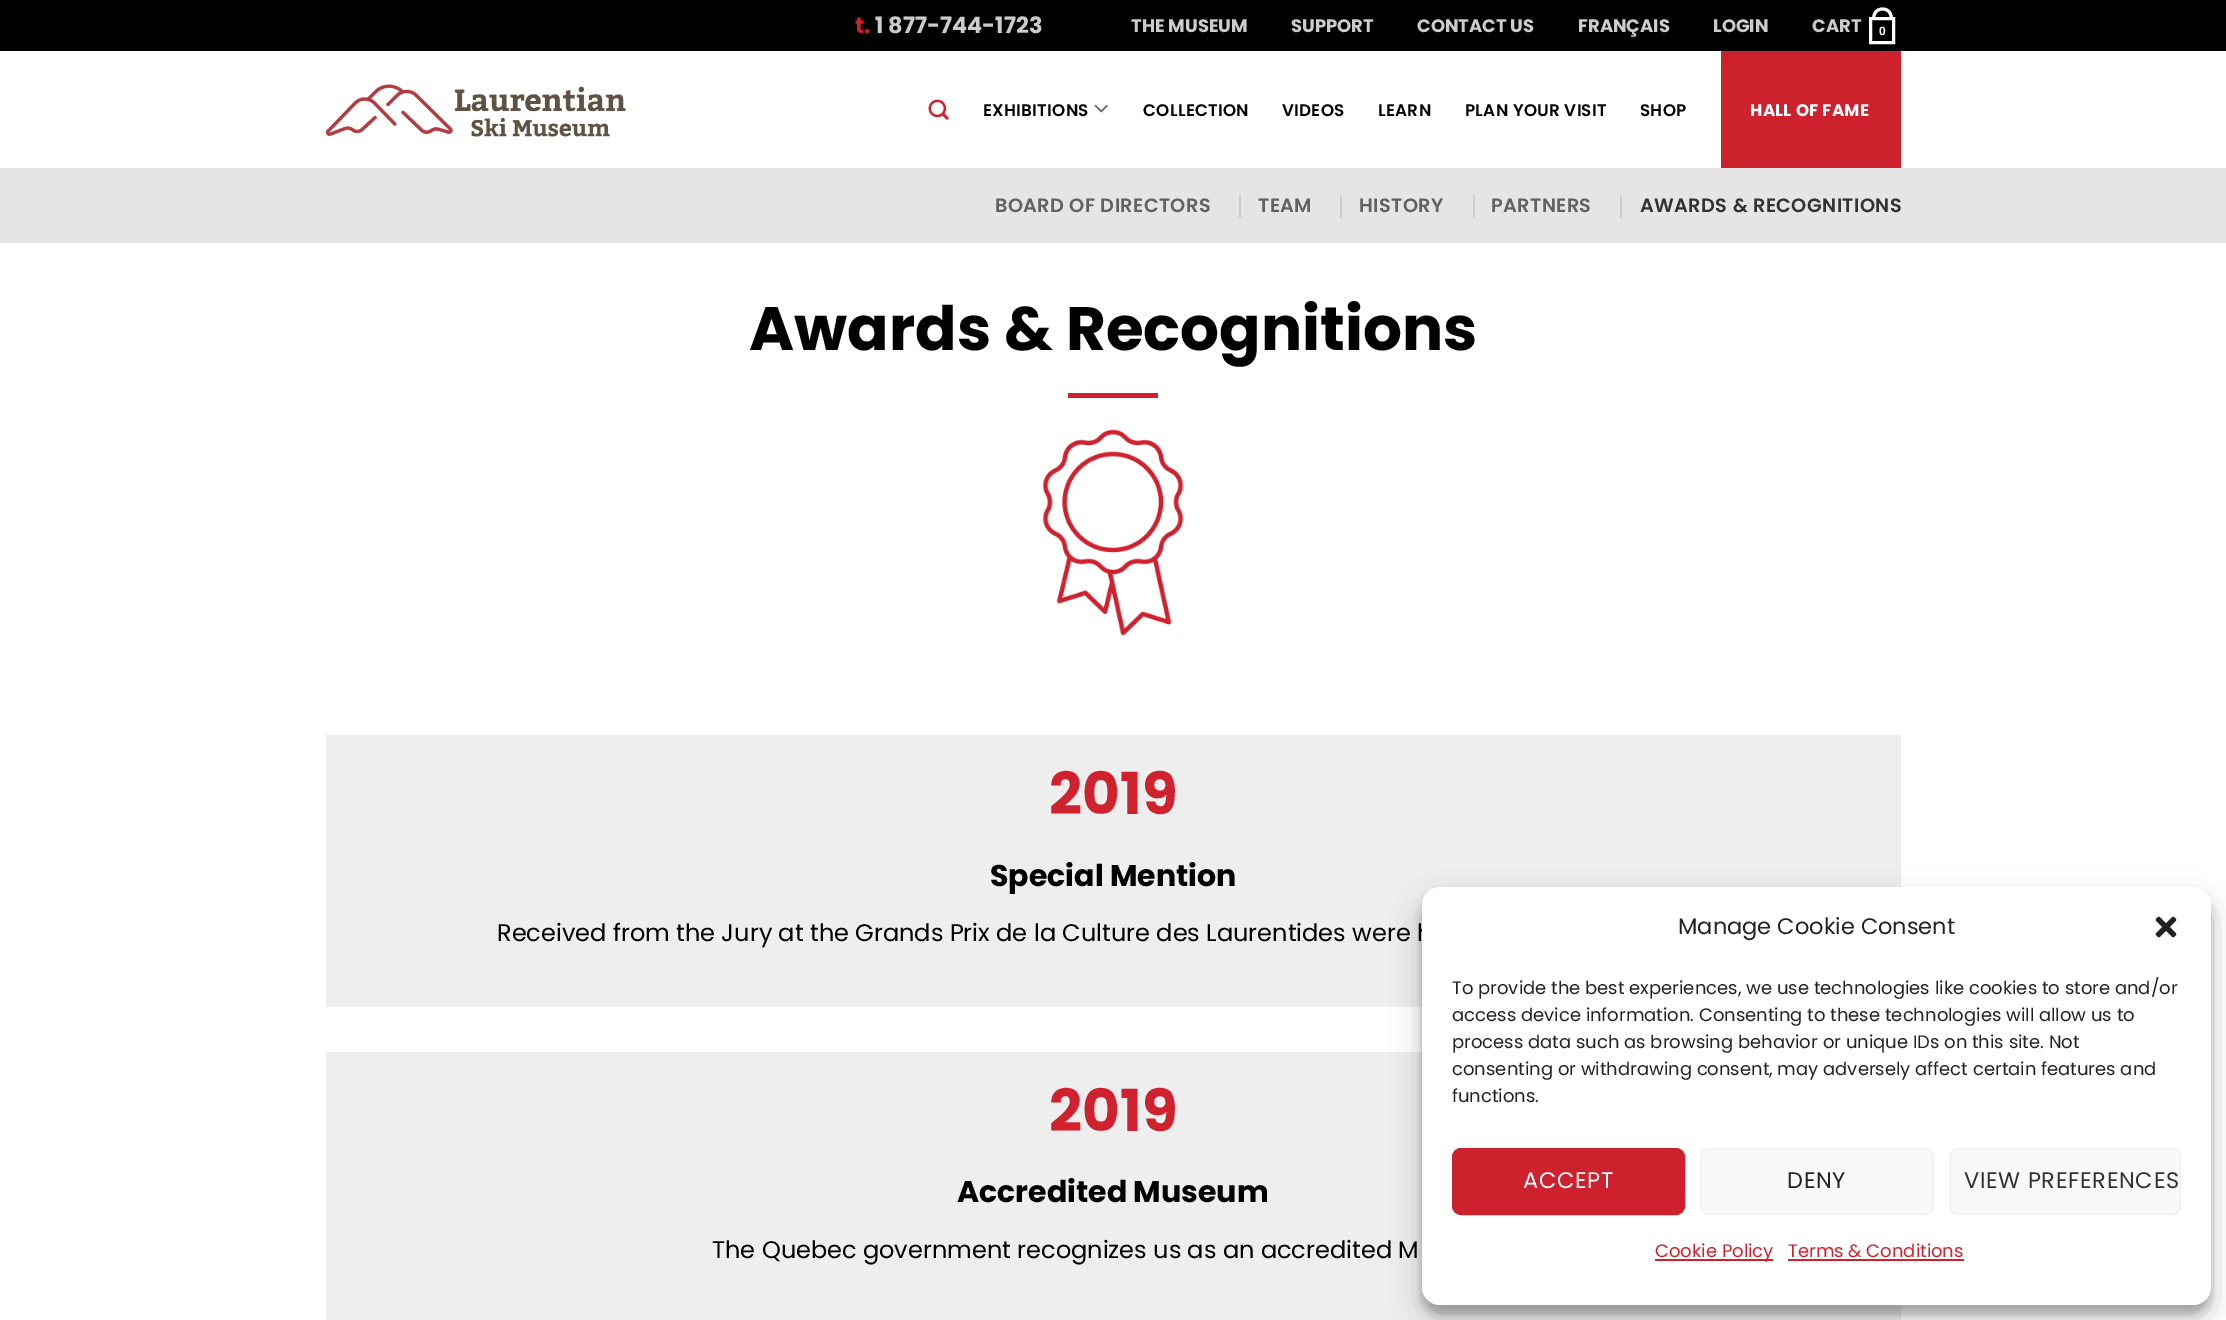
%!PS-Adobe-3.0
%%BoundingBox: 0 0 2226 1320
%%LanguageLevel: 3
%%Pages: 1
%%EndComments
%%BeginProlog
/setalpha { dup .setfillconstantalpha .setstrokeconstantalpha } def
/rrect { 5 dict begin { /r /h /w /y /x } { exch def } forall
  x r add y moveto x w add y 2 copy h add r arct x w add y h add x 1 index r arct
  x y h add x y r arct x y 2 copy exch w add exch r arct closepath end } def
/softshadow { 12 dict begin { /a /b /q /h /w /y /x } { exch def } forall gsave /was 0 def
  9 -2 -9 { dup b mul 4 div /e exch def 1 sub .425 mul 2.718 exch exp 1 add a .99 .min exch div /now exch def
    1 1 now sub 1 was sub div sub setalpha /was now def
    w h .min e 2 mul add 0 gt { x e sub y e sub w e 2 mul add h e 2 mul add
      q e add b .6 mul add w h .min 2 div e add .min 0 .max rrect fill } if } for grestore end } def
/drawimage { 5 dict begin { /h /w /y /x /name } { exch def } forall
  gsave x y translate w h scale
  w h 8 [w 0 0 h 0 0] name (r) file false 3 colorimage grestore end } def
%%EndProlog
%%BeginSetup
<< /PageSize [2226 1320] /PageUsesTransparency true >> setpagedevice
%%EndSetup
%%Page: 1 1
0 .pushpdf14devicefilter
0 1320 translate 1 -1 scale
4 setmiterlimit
1 setgray
0 0 2226 1320 rectfill
0 setgray
0 0 2226 51 rectfill
1 setgray
3 setlinewidth
1870.5 18.5 23 24 rectstroke
newpath 1882.5 7.5 moveto 1889.5 7.5 1893 13 1893 19.5 curveto 1872 19.5 lineto 1872 13 1875.5 7.5 1882.5 7.5 curveto closepath 1882.5 10.5 moveto 1888 10.5 1890 15 1890 19.5 curveto 1875 19.5 lineto 1875 15 1877 10.5 1882.5 10.5 curveto closepath eofill
(images/1.raw) 325 84 301 53 drawimage
(images/2.raw) 928 99 21 21 drawimage
(images/3.raw) 1094 104 14 9 drawimage
0.804 0.133 0.18 setrgbcolor
1721 51 180 117 rectfill
0.898 setgray
0 168 2226 75 rectfill
0.808 setgray
1239 195 2 23 rectfill
1340 195 2 23 rectfill
1473 195 2 23 rectfill
1620 195 2 23 rectfill
0.812 0.133 0.18 setrgbcolor
1068 393 90 5 rectfill
(images/4.raw) 1042 429 142 207 drawimage
0.933 setgray
326 735 1575 272 rectfill
326 1052 1575 268 rectfill
0 setgray
1422 896 789 418 18 4.5 0.23 softshadow
1422 902 789 418 18 15 0.19 softshadow
/Poppins-Bold [22.5 0 0 -22.5 0 0] selectfont
0.812 0.133 0.18 setrgbcolor
855 33 moveto (t.) show
0.8 setgray
875 33 moveto (1 877-744-1723) show
/Poppins-Bold [18 0 0 -18 0 0] selectfont
1131 32 moveto (THE MUSEUM) show
1291 32 moveto (SUPPORT) show
1417 32 moveto (CONTACT US) show
1578 32 moveto (FRANÇAIS) show
1713 32 moveto (LOGIN) show
1812 32 moveto (CART) show
/LiberationSans-Bold [12 0 0 -12 0 0] selectfont
1 setgray
1879 35 moveto (0) show
/Poppins-SemiBold [16.75 0 0 -16.75 0 0] selectfont
0 setgray
983 116 moveto 0.3 0 (EXHIBITIONS) ashow
1143 116 moveto 0.3 0 (COLLECTION) ashow
1282 116 moveto 0.3 0 (VIDEOS) ashow
1378 116 moveto 0.3 0 (LEARN) ashow
1465 116 moveto 0.3 0 (PLAN YOUR VISIT) ashow
1640 116 moveto 0.3 0 (SHOP) ashow
/Poppins-Bold [16.75 0 0 -16.75 0 0] selectfont
1 setgray
1750 116 moveto 0.3 0 (HALL OF FAME) ashow
/Poppins-SemiBold [19.25 0 0 -19.25 0 0] selectfont
0.38 setgray
995 212 moveto 0.4 0 (BOARD OF DIRECTORS) ashow
1258 212 moveto 0.4 0 (TEAM) ashow
1359 212 moveto 0.4 0 (HISTORY) ashow
1491 212 moveto 0.4 0 (PARTNERS) ashow
0.196 setgray
1640 212 moveto 0.4 0 (AWARDS & RECOGNITIONS) ashow
/Poppins-Bold [61.25 0 0 -61.25 0 0] selectfont
0 setgray
749 350 moveto (Awards & Recognitions) show
/Poppins-Bold [58 0 0 -58 0 0] selectfont
0.812 0.133 0.18 setrgbcolor
1049 814 moveto (2019) show
/Poppins-Bold [30 0 0 -30 0 0] selectfont
0 setgray
990 886 moveto (Special Mention) show
/Poppins-Regular [24 0 0 -24 0 0] selectfont
497 941 moveto (Received from the Jury at the Grands Prix de la Culture des Laurentides were h) show
/Poppins-Bold [58 0 0 -58 0 0] selectfont
0.812 0.133 0.18 setrgbcolor
1049 1131 moveto (2019) show
/Poppins-Bold [30 0 0 -30 0 0] selectfont
0 setgray
957 1202 moveto (Accredited Museum) show
/Poppins-Regular [24 0 0 -24 0 0] selectfont
712 1258 moveto (The Quebec government recognizes us as an accredited M) show
1 setgray
1422 887 789 418 18 rrect fill
/Poppins-Regular [22.5 0 0 -22.5 0 0] selectfont
0.133 setgray
1678 934 moveto (Manage Cookie Consent) show
(images/5.raw) 2155 916 22 22 drawimage
/Poppins-Regular [18 0 0 -18 0 0] selectfont
1452 994 moveto (To provide the best experiences, we use technologies like cookies to store and/or) show
1452 1021 moveto (access device information. Consenting to these technologies will allow us to) show
1452 1048 moveto (process data such as browsing behavior or unique IDs on this site. Not) show
1452 1075 moveto (consenting or withdrawing consent, may adversely affect certain features and) show
1452 1102 moveto (functions.) show
0.804 0.133 0.18 setrgbcolor
1453 1149 231 65 8 rrect gsave fill grestore
2 setlinewidth
stroke
/Poppins-Regular [22.5 0 0 -22.5 0 0] selectfont
1 setgray
1523 1188 moveto 0.7 0 (ACCEPT) ashow
0.976 setgray
1701 1149 232 65 8 rrect gsave fill grestore
0.949 setgray
stroke
0.133 setgray
1787 1188 moveto 0.7 0 (DENY) ashow
0.976 setgray
1950 1149 230 65 8 rrect gsave fill grestore
0.949 setgray
stroke
0.196 setgray
1964 1188 moveto 0.7 0 (VIEW PREFERENCES) ashow
0.804 0.133 0.18 setrgbcolor
1655 1259 118 2 rectfill
/Poppins-Regular [18 0 0 -18 0 0] selectfont
0.812 0.133 0.18 setrgbcolor
1655 1257 moveto (Cookie Policy) show
1788 1257 moveto (Terms & Conditions) show
0.804 0.133 0.18 setrgbcolor
1788 1259 176 2 rectfill
.poppdf14devicefilter showpage
%%EOF
